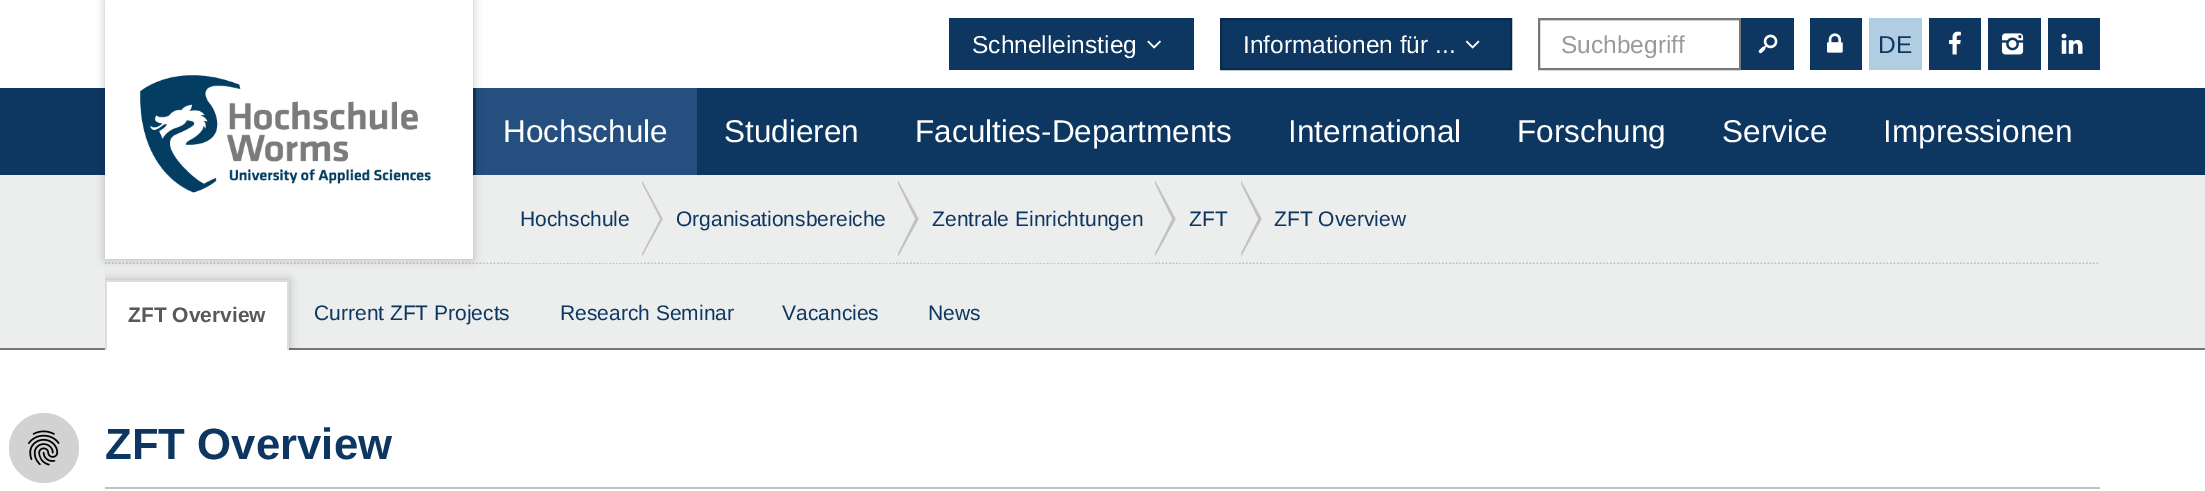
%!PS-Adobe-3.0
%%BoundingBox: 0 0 2205 491
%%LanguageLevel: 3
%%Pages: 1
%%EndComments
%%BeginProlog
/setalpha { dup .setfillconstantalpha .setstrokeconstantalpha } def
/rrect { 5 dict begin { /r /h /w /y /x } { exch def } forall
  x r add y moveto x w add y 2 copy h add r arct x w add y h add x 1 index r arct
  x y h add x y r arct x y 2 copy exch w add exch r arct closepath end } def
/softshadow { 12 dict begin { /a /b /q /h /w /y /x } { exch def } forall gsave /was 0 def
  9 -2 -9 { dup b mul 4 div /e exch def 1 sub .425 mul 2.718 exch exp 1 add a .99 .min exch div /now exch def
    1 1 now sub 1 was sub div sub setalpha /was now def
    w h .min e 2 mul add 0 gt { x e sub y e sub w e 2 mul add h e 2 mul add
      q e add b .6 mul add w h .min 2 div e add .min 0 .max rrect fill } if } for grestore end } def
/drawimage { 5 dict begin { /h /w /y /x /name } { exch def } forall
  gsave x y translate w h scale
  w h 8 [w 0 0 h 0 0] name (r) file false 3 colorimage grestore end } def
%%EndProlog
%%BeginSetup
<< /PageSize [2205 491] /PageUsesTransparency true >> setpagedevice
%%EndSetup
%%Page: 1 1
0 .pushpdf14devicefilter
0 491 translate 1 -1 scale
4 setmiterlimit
1 setgray
0 0 2205 491 rectfill
0.051 0.212 0.38 setrgbcolor
0 88 2205 87 rectfill
0.141 0.31 0.494 setrgbcolor
476 88 221 87 rectfill
0.925 0.929 0.929 setrgbcolor
0 175 2205 89 rectfill
0.757 0.757 0.765 setrgbcolor
1.8 setlinewidth
[1.75 1.75] 0 setdash
newpath 105 263.5 moveto 2100 263.5 lineto stroke
0.925 0.929 0.929 setrgbcolor
0 264 2205 84 rectfill
0 setgray
105 0 368 259 0 4.5 0.23 softshadow
1 setgray
105 0 368 259 rectfill
(images/1.raw) 140 75 291 118 drawimage
0.051 0.212 0.38 setrgbcolor
949 18 245 52 rectfill
(images/2.raw) 1147 40 14 9 drawimage
newpath 1221 19 moveto 1511 19 lineto 1511 69 lineto 1221 69 lineto closepath gsave fill grestore
0.039 0.161 0.294 setrgbcolor
2 setlinewidth
[] 0 setdash
stroke
(images/3.raw) 1465 40 15 9 drawimage
0.925 setgray
1540 20 200 1 rectfill
0.467 setgray
1539 19 201 50 rectstroke
0.051 0.212 0.38 setrgbcolor
1741 18 53 52 rectfill
(images/4.raw) 1758 34 20 20 drawimage
1810 18 52 52 rectfill
(images/5.raw) 1827 33 16 20 drawimage
0.69 0.804 0.882 setrgbcolor
1869 18 53 52 rectfill
0.051 0.212 0.38 setrgbcolor
1929 18 52 52 rectfill
(images/6.raw) 1949 31 12 24 drawimage
1988 18 53 52 rectfill
(images/7.raw) 2002 33 22 22 drawimage
2048 18 52 52 rectfill
(images/8.raw) 2061 33 22 21 drawimage
0.925 0.929 0.929 setrgbcolor
509 262 132 1 rectfill
0.757 0.757 0.765 setrgbcolor
642 180 21 77 rectfill
0.925 0.929 0.929 setrgbcolor
newpath 642 180 moveto 667 180 lineto 663 219 lineto closepath fill
newpath 667 257 moveto 642 257 lineto 663 219 lineto closepath fill
newpath 640 257 moveto 640 180 lineto 660 219 lineto closepath fill
665 262 230 1 rectfill
0.757 0.757 0.765 setrgbcolor
898 180 21 77 rectfill
0.925 0.929 0.929 setrgbcolor
newpath 898 180 moveto 922 180 lineto 919 219 lineto closepath fill
newpath 922 257 moveto 898 257 lineto 919 219 lineto closepath fill
newpath 896 257 moveto 896 180 lineto 915 219 lineto closepath fill
921 262 232 1 rectfill
0.757 0.757 0.765 setrgbcolor
1155 180 21 77 rectfill
0.925 0.929 0.929 setrgbcolor
newpath 1155 180 moveto 1179.5 180 lineto 1176 219 lineto closepath fill
newpath 1179.5 257 moveto 1155 257 lineto 1176 219 lineto closepath fill
newpath 1153 257 moveto 1153 180 lineto 1172 219 lineto closepath fill
1180 262 58 1 rectfill
0.757 0.757 0.765 setrgbcolor
1241 180 21 77 rectfill
0.925 0.929 0.929 setrgbcolor
newpath 1241 180 moveto 1265 180 lineto 1262 219 lineto closepath fill
newpath 1265 257 moveto 1241 257 lineto 1262 219 lineto closepath fill
newpath 1239 257 moveto 1239 180 lineto 1258 219 lineto closepath fill
1264 262 152 1 rectfill
0.467 setgray
0 348 2205 2 rectfill
gsave
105 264 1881 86 rectclip
0 setgray
105 280 184 72 0 4.5 0.23 softshadow
grestore
1 setgray
107 282 180 68 rectfill
0.867 setgray
105 280 184 2 rectfill
gsave
105 264 1881 86 rectclip
newpath 289 280 moveto 289 352 lineto 287 350 lineto 287 282 lineto closepath fill
newpath 105 352 moveto 105 280 lineto 107 282 lineto 107 350 lineto closepath fill
grestore
0.824 setgray
newpath 44 448 35 0 360 arc closepath fill
(images/9.raw) 28 430 32 36 drawimage
0.757 0.757 0.765 setrgbcolor
105 487 1995 2 rectfill
/LiberationSans-Regular [24.5 0 0 -24.5 0 0] selectfont
1 setgray
972 53 moveto (Schnelleinstieg) show
1243 53 moveto (Informationen für ...) show
0.6 setgray
1561 53 moveto (Suchbegriff) show
0.051 0.212 0.38 setrgbcolor
1878 53 moveto (DE) show
/LiberationSans-Regular [31.5 0 0 -31.5 0 0] selectfont
1 setgray
503 142 moveto (Hochschule) show
724 142 moveto (Studieren) show
915 142 moveto (Faculties-Departments) show
1288 142 moveto (International) show
1517 142 moveto (Forschung) show
1722 142 moveto (Service) show
1883 142 moveto (Impressionen) show
/LiberationSans-Regular [21 0 0 -21 0 0] selectfont
0.051 0.212 0.38 setrgbcolor
520 226 moveto (Hochschule) show
676 226 moveto (Organisationsbereiche) show
932 226 moveto (Zentrale Einrichtungen) show
1189 226 moveto (ZFT) show
1274 226 moveto (ZFT Overview) show
/LiberationSans-Bold [21 0 0 -21 0 0] selectfont
0.349 setgray
128 322 moveto (ZFT Overview) show
/LiberationSans-Regular [21 0 0 -21 0 0] selectfont
0.051 0.212 0.38 setrgbcolor
314 320 moveto (Current ZFT Projects) show
560 320 moveto (Research Seminar) show
782 320 moveto (Vacancies) show
928 320 moveto (News) show
/LiberationSans-Bold [43.75 0 0 -43.75 0 0] selectfont
105 459 moveto (ZFT Overview) show
.poppdf14devicefilter showpage
%%EOF
